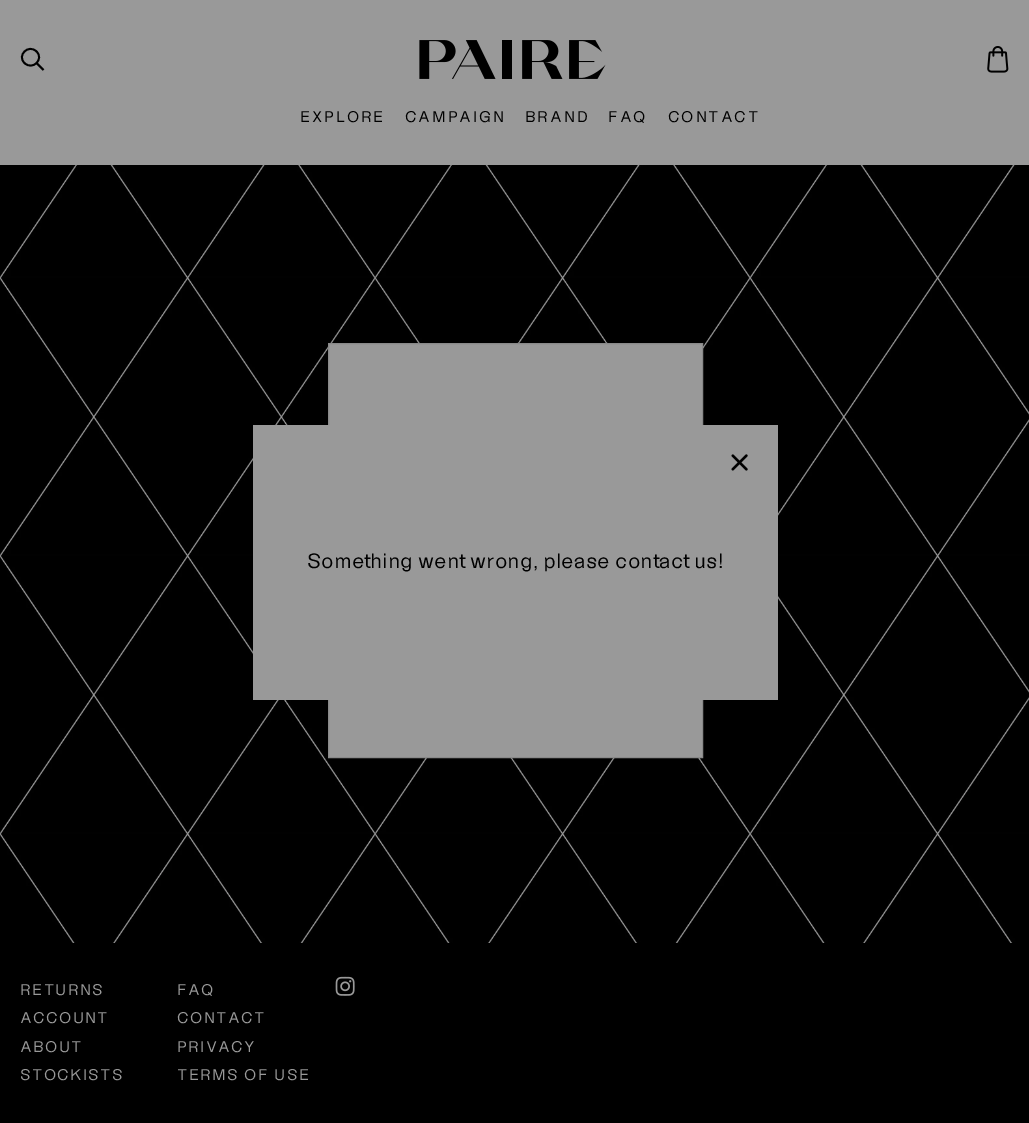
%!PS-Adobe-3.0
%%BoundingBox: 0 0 1029 1123
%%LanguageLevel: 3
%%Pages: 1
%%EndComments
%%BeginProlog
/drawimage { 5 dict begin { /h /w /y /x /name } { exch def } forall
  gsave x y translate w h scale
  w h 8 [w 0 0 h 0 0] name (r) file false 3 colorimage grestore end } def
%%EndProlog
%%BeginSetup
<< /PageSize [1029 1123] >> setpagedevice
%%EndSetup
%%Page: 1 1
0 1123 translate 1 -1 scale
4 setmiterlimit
1 setgray
0 0 1029 1123 rectfill
(images/1.raw) 0 165 1029 778 drawimage
0.6 setgray
0 0 1029 165 rectfill
0 setgray
1.8 setlinewidth
newpath 36.5 51.5 moveto 28.5 43.5 16.5 55.5 24.5 63 curveto 32.5 71 44.5 59 36.5 51.5 curveto closepath 36.5 63 moveto 43.5 70 lineto stroke
(images/2.raw) 419 40 187 39 drawimage
(images/3.raw) 987 46 22 27 drawimage
0.6 setgray
newpath 328.5 343.5 moveto 702.5 343.5 lineto 702.5 757.5 lineto 328.5 757.5 lineto closepath gsave fill grestore
0.537 setgray
1 setlinewidth
stroke
0.6 setgray
253 425 525 275 rectfill
(images/4.raw) 731 454 17 17 drawimage
0 setgray
0 943 1029 180 rectfill
(images/5.raw) 335 976 20 20 drawimage
/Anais-Regular [15 0 0 -15 0 0] selectfont
300 122 moveto 1.75 0 (EXPLORE) ashow
405 122 moveto 1.75 0 (CAMPAIGN) ashow
525 122 moveto 1.75 0 (BRAND) ashow
608 122 moveto 1.75 0 (FAQ) ashow
668 122 moveto 1.75 0 (CONTACT) ashow
/Anais-Regular [20 0 0 -20 0 0] selectfont
307 568 moveto (Something went wrong, please contact us!) show
/Anais-Regular [15 0 0 -15 0 0] selectfont
0.6 setgray
20 995 moveto 1.25 0 (RETURNS) ashow
20 1023 moveto 1.25 0 (ACCOUNT) ashow
20 1052 moveto 1.25 0 (ABOUT) ashow
20 1080 moveto 1.25 0 (STOCKISTS) ashow
177 995 moveto 1.25 0 (FAQ) ashow
177 1023 moveto 1.25 0 (CONTACT) ashow
177 1052 moveto 1.25 0 (PRIVACY) ashow
177 1080 moveto 1.25 0 (TERMS OF USE) ashow
showpage
%%EOF
